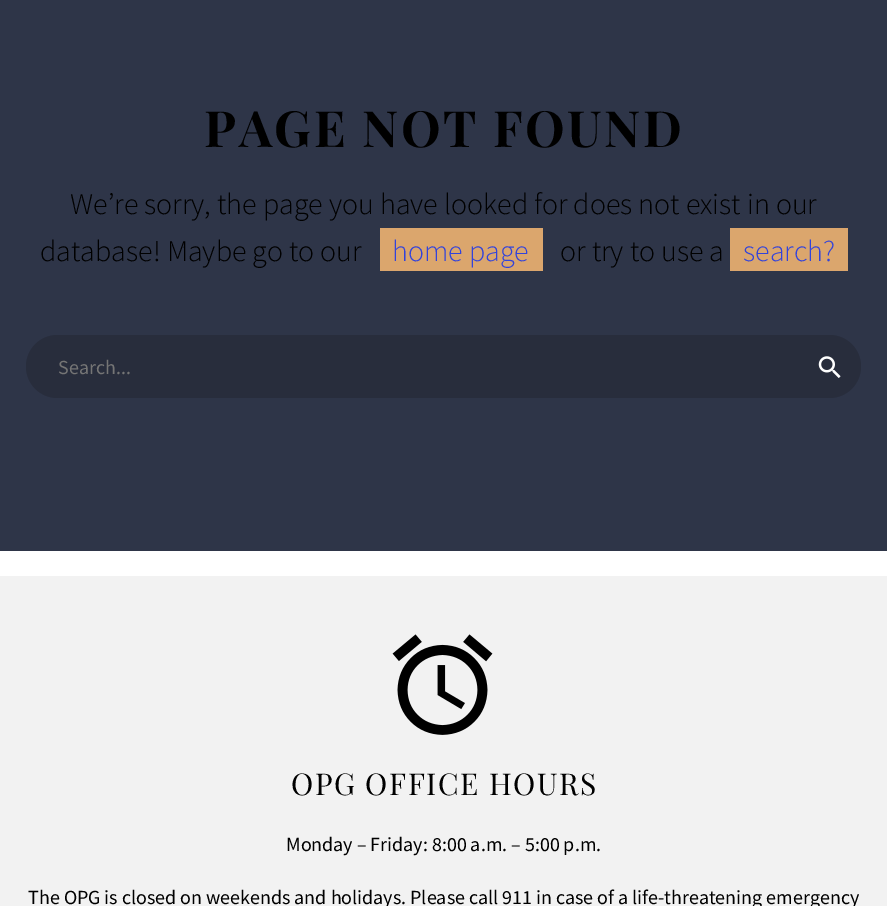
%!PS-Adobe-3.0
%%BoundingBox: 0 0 887 906
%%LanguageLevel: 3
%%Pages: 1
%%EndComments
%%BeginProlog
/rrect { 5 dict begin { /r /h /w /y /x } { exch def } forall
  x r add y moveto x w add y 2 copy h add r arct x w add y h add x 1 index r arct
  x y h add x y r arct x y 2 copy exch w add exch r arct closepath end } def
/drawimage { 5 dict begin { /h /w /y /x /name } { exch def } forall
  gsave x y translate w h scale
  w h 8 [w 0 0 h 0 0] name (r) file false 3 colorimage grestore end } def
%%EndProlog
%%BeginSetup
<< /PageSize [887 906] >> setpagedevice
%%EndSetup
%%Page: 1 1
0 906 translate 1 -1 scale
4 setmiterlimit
1 setgray
0 0 887 906 rectfill
0.18 0.208 0.282 setrgbcolor
0 0 887 551 rectfill
0.859 0.651 0.427 setrgbcolor
380 228 163 43 rectfill
730 228 118 43 rectfill
0.157 0.176 0.235 setrgbcolor
26 335 835 63 31.5 rrect fill
(images/1.raw) 818 356 23 22 drawimage
0.949 setgray
0 576 887 330 rectfill
(images/2.raw) 392 634 51 101 drawimage
(images/3.raw) 443 634 50 101 drawimage
/PlayfairDisplay-Bold [50 0 0 -50 0 0] selectfont
0 setgray
204 147 moveto 2.5 0 (PAGE NOT FOUND) ashow
/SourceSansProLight-Light [30 0 0 -30 0 0] selectfont
70 214 moveto (We’re sorry, the page you have looked for does not exist in our) show
40 261 moveto (database! Maybe go to our) show
0.196 0.263 0.863 setrgbcolor
392 261 moveto (home page) show
0 setgray
560 261 moveto (or try to use a) show
0.196 0.263 0.863 setrgbcolor
743 261 moveto (search?) show
/SourceSansPro-Regular [20 0 0 -20 0 0] selectfont
0.459 setgray
58 374 moveto (Search...) show
/PlayfairDisplay-Regular [30 0 0 -30 0 0] selectfont
0 setgray
291 795 moveto 1.5 0 (OPG OFFICE HOURS) ashow
/SourceSansPro-Regular [20 0 0 -20 0 0] selectfont
286 851 moveto (Monday – Friday: 8:00 a.m. – 5:00 p.m.) show
28 904 moveto (The OPG is closed on weekends and holidays. Please call 911 in case of a life-threatening emergency) show
showpage
%%EOF
